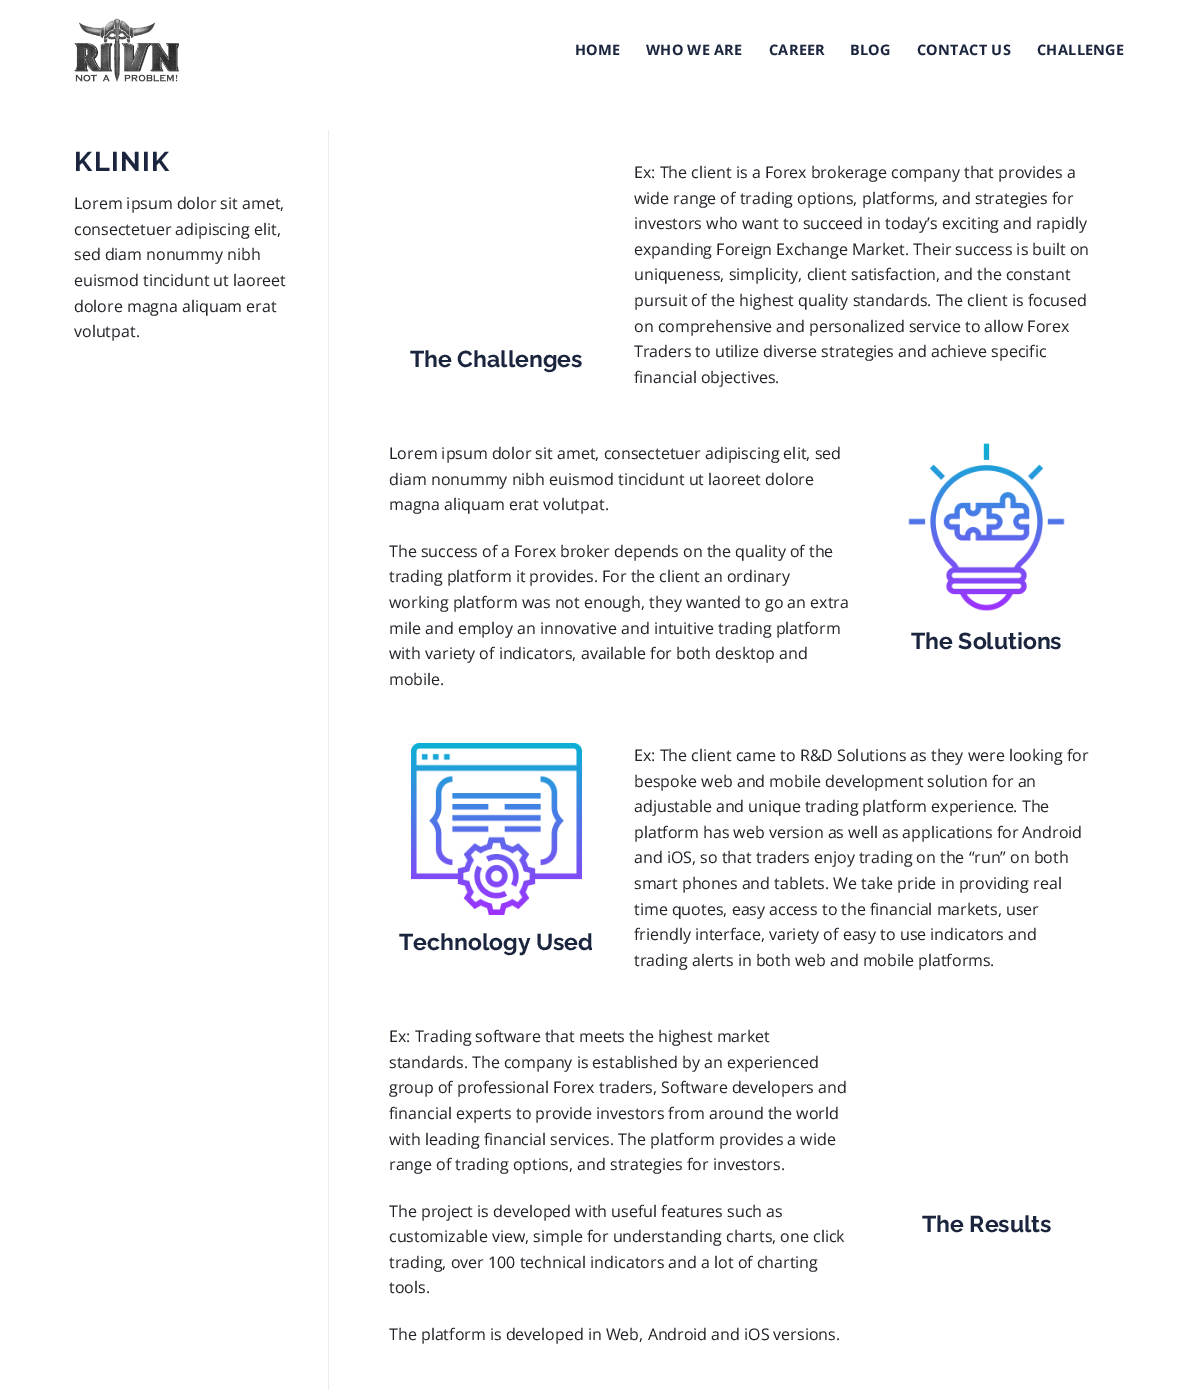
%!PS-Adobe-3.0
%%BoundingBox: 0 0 1198 1390
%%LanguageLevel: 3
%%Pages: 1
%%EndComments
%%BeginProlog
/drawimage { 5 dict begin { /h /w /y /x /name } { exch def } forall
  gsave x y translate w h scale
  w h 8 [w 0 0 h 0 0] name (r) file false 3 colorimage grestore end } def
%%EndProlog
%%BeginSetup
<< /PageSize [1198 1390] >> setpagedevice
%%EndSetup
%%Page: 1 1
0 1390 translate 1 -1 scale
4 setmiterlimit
1 setgray
0 0 1198 1390 rectfill
(images/1.raw) 74 18 105 64 drawimage
0.925 setgray
328 130 1 1260 rectfill
(images/2.raw) 908 443 157 168 drawimage
(images/3.raw) 411 743 171 172 drawimage
/OpenSans-Bold [14.5 0 0 -14.5 0 0] selectfont
0.106 0.145 0.243 setrgbcolor
575 55 moveto 0.25 0 (HOME) ashow
646 55 moveto 0.25 0 (WHO WE ARE) ashow
769 55 moveto 0.25 0 (CAREER) ashow
850 55 moveto 0.25 0 (BLOG) ashow
917 55 moveto 0.25 0 (CONTACT US) ashow
1037 55 moveto 0.25 0 (CHALLENGE) ashow
/Raleway-Bold [27 0 0 -27 0 0] selectfont
74 171 moveto 1.5 0 (KLINIK) ashow
/OpenSans-Regular [16 0 0 -16 0 0] selectfont
0.125 0.133 0.153 setrgbcolor
74 209 moveto (Lorem ipsum dolor sit amet,) show
74 235 moveto (consectetuer adipiscing elit,) show
74 260 moveto (sed diam nonummy nibh) show
74 286 moveto (euismod tincidunt ut laoreet) show
74 312 moveto (dolore magna aliquam erat) show
74 337 moveto (volutpat.) show
/Raleway-Bold [23 0 0 -23 0 0] selectfont
0.106 0.145 0.243 setrgbcolor
410 367 moveto (The Challenges) show
/OpenSans-Regular [16 0 0 -16 0 0] selectfont
0.125 0.133 0.153 setrgbcolor
634 178 moveto (Ex: The client is a Forex brokerage company that provides a) show
634 204 moveto (wide range of trading options, platforms, and strategies for) show
634 229 moveto (investors who want to succeed in today’s exciting and rapidly) show
634 255 moveto (expanding Foreign Exchange Market. Their success is built on) show
634 280 moveto (uniqueness, simplicity, client satisfaction, and the constant) show
634 306 moveto (pursuit of the highest quality standards. The client is focused) show
634 332 moveto (on comprehensive and personalized service to allow Forex) show
634 357 moveto (Traders to utilize diverse strategies and achieve specific) show
634 383 moveto (financial objectives.) show
389 459 moveto (Lorem ipsum dolor sit amet, consectetuer adipiscing elit, sed) show
389 485 moveto (diam nonummy nibh euismod tincidunt ut laoreet dolore) show
389 510 moveto (magna aliquam erat volutpat.) show
389 557 moveto (The success of a Forex broker depends on the quality of the) show
389 582 moveto (trading platform it provides. For the client an ordinary) show
389 608 moveto (working platform was not enough, they wanted to go an extra) show
389 634 moveto (mile and employ an innovative and intuitive trading platform) show
389 659 moveto (with variety of indicators, available for both desktop and) show
389 685 moveto (mobile.) show
/Raleway-Bold [23 0 0 -23 0 0] selectfont
0.106 0.145 0.243 setrgbcolor
911 649 moveto (The Solutions) show
399 950 moveto (Technology Used) show
/OpenSans-Regular [16 0 0 -16 0 0] selectfont
0.125 0.133 0.153 setrgbcolor
634 761 moveto (Ex: The client came to R&D Solutions as they were looking for) show
634 787 moveto (bespoke web and mobile development solution for an) show
634 812 moveto (adjustable and unique trading platform experience. The) show
634 838 moveto (platform has web version as well as applications for Android) show
634 863 moveto (and iOS, so that traders enjoy trading on the “run” on both) show
634 889 moveto (smart phones and tablets. We take pride in providing real) show
634 915 moveto (time quotes, easy access to the financial markets, user) show
634 940 moveto (friendly interface, variety of easy to use indicators and) show
634 966 moveto (trading alerts in both web and mobile platforms.) show
389 1042 moveto (Ex: Тrading software that meets the highest market) show
389 1068 moveto (standards. The company is established by an experienced) show
389 1093 moveto (group of professional Forex traders, Software developers and) show
389 1119 moveto (financial experts to provide investors from around the world) show
389 1145 moveto (with leading financial services. The platform provides a wide) show
389 1170 moveto (range of trading options, and strategies for investors.) show
389 1217 moveto (The project is developed with useful features such as) show
389 1242 moveto (customizable view, simple for understanding charts, one click) show
389 1268 moveto (trading, over 100 technical indicators and a lot of charting) show
389 1293 moveto (tools.) show
389 1340 moveto (The platform is developed in Web, Android and iOS versions.) show
/Raleway-Bold [23 0 0 -23 0 0] selectfont
0.106 0.145 0.243 setrgbcolor
922 1232 moveto (The Results) show
showpage
%%EOF
